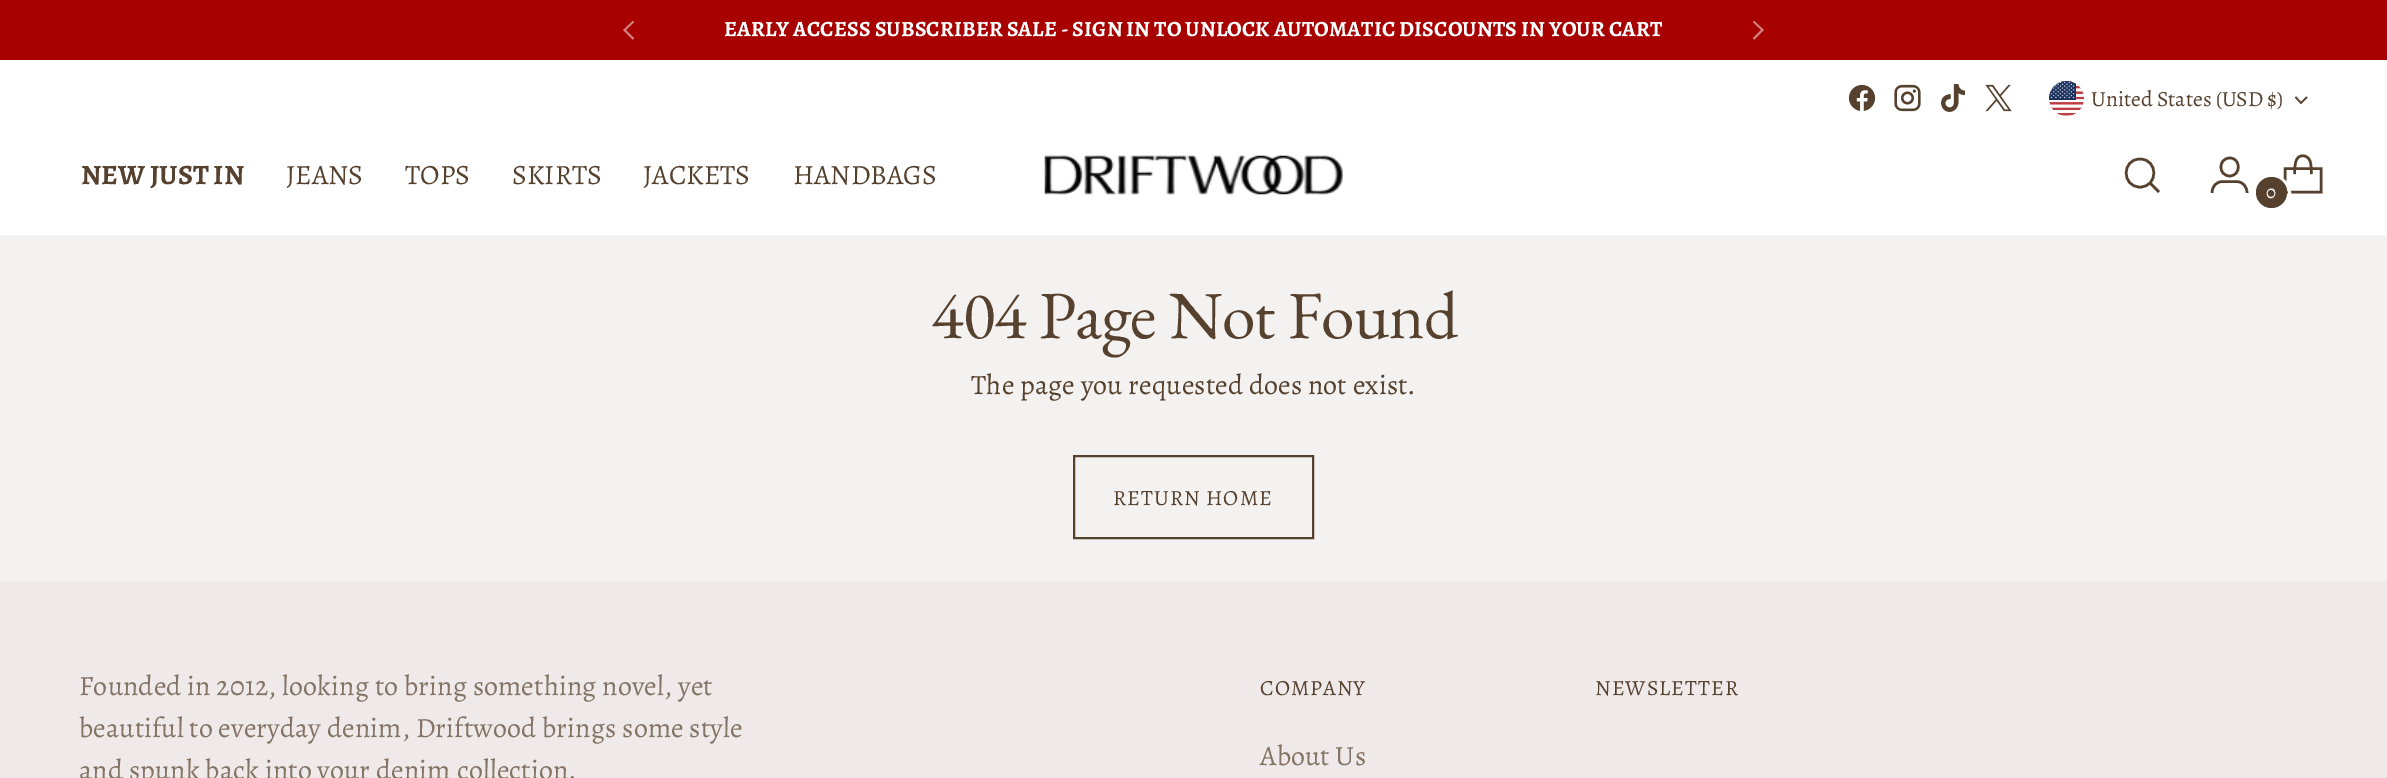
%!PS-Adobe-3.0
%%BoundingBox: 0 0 2387 778
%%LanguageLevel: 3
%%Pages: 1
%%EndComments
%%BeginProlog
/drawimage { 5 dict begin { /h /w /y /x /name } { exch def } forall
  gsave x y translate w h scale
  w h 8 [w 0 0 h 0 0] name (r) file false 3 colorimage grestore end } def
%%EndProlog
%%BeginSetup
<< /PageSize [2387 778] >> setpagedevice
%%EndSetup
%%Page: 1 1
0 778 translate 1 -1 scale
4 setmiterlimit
0.957 0.949 0.945 setrgbcolor
0 0 2387 778 rectfill
0.655 0.004 0 setrgbcolor
0 0 2387 60 rectfill
0.827 0.502 0.502 setrgbcolor
1.8 setlinewidth
newpath 633.5 21.5 moveto 624.5 30 lineto 633.5 39 lineto stroke
newpath 1753.5 39 moveto 1762.5 30 lineto 1753.5 21.5 lineto stroke
1 setgray
0 60 2387 175 rectfill
(images/1.raw) 1848 84 28 27 drawimage
(images/2.raw) 1894 84 27 28 drawimage
(images/3.raw) 1941 84 25 28 drawimage
(images/4.raw) 1985 84 27 28 drawimage
(images/5.raw) 2049 81 35 35 drawimage
0.337 0.255 0.18 setrgbcolor
1.6 setlinewidth
newpath 2295.5 97 moveto 2301 103 lineto 2307 97 lineto stroke
(images/6.raw) 1044 155 299 40 drawimage
2.5 setlinewidth
1 setlinecap
newpath 2140 187 moveto 2158.5 187 2158.5 159 2140 159 curveto 2121.5 159 2121.5 187 2140 187 curveto closepath stroke
0 setlinecap
newpath 2150 183 moveto 2159 192 lineto stroke
newpath 2229.5 176 moveto 2241.5 176 2241 157.5 2229.5 158 curveto 2218 158.5 2218 175.5 2229.5 176 curveto closepath 2212 193 moveto 2212 187 2215.5 181.5 2223 181.5 curveto 2236 181.5 lineto 2243.5 181.5 2247 187 2247 193 curveto stroke
2 setlinejoin
newpath 2311.5 174 moveto 2311 169.5 2311.5 165 2310 161 curveto 2309 158.5 2307.5 156.5 2304.5 156 curveto 2294 154 2295 167.5 2294.5 174 curveto stroke
0 setlinejoin
newpath 2321 192 moveto 2321 168.5 lineto 2285 168.5 lineto 2285 192 lineto closepath stroke
1 setgray
3 setlinewidth
newpath 2272.5 193.5 17 0 360 arc closepath stroke
0.337 0.255 0.18 setrgbcolor
newpath 2271.5 192.5 15.5 0 360 arc closepath fill
2 setlinewidth
1074 456 239 82 rectstroke
0.937 0.918 0.914 setrgbcolor
0 581 2387 197 rectfill
/Alegreya-Bold [21.75 0 0 -21.75 0 0] selectfont
1 setgray
724 36 moveto 0.1 0 (EARLY ACCESS SUBSCRIBER SALE - SIGN IN TO UNLOCK AUTOMATIC DISCOUNTS IN YOUR CART) ashow
/Alegreya-Regular [21.75 0 0 -21.75 0 0] selectfont
0.337 0.255 0.18 setrgbcolor
2091 106 moveto (United States \(USD $\)) show
/Alegreya-Bold [28 0 0 -28 0 0] selectfont
81 184 moveto (NEW JUST IN) show
/Alegreya-Regular [28 0 0 -28 0 0] selectfont
286 184 moveto (JEANS) show
405 184 moveto (TOPS) show
512 184 moveto (SKIRTS) show
643 184 moveto (JACKETS) show
793 184 moveto (HANDBAGS) show
/Alegreya-Regular [19 0 0 -19 0 0] selectfont
1 setgray
2266 198 moveto 0.15 0 (0) ashow
/EBGaramond-Regular [67.5 0 0 -67.5 0 0] selectfont
0.337 0.255 0.18 setrgbcolor
931 338 moveto -0.7 0 (404 Page Not Found) ashow
/Alegreya-Regular [28 0 0 -28 0 0] selectfont
971 394 moveto 0.15 0 (The page you requested does not exist.) ashow
/Alegreya-Regular [21.75 0 0 -21.75 0 0] selectfont
1113 505 moveto 1 0 (RETURN HOME) ashow
/Alegreya-Regular [28 0 0 -28 0 0] selectfont
0.518 0.455 0.4 setrgbcolor
79 695 moveto 0.15 0 (Founded in 2012, looking to bring something novel, yet) ashow
79 737 moveto 0.15 0 (beautiful to everyday denim, Driftwood brings some style) ashow
79 779 moveto 0.15 0 (and spunk back into your denim collection.) ashow
/Alegreya-Regular [21.75 0 0 -21.75 0 0] selectfont
0.337 0.255 0.18 setrgbcolor
1260 695 moveto 1 0 (COMPANY) ashow
/Alegreya-Regular [28 0 0 -28 0 0] selectfont
0.518 0.455 0.4 setrgbcolor
1260 765 moveto 0.15 0 (About Us) ashow
/Alegreya-Regular [21.75 0 0 -21.75 0 0] selectfont
0.337 0.255 0.18 setrgbcolor
1595 695 moveto 1 0 (NEWSLETTER) ashow
showpage
%%EOF
